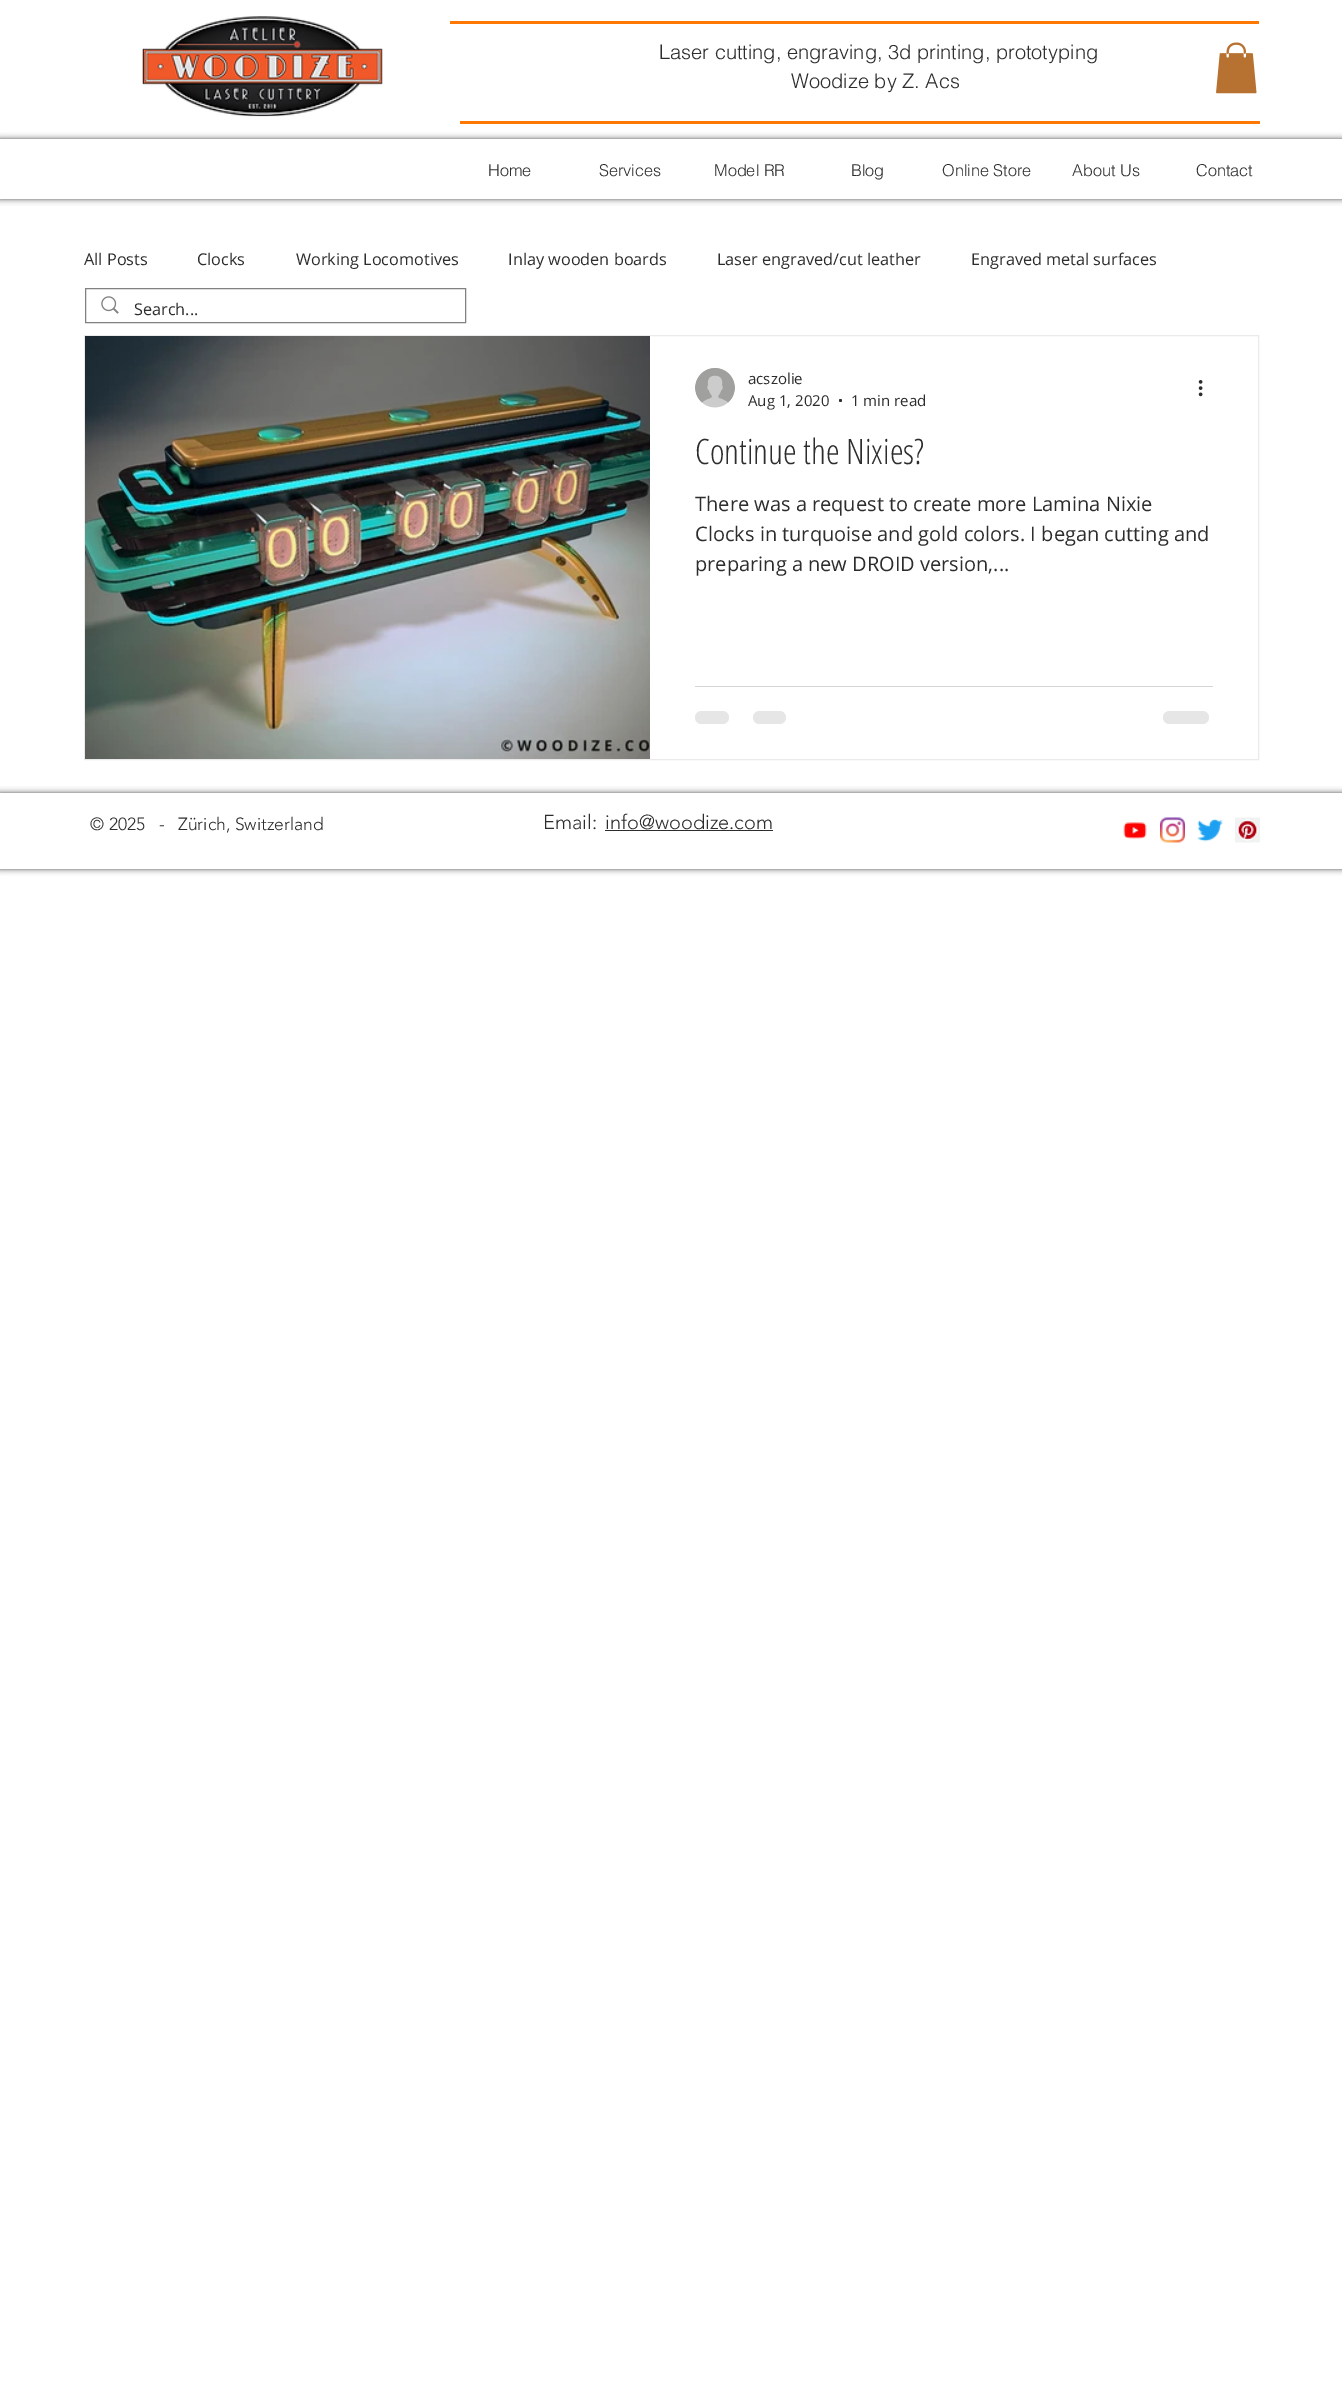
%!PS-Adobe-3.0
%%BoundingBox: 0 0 1342 2384
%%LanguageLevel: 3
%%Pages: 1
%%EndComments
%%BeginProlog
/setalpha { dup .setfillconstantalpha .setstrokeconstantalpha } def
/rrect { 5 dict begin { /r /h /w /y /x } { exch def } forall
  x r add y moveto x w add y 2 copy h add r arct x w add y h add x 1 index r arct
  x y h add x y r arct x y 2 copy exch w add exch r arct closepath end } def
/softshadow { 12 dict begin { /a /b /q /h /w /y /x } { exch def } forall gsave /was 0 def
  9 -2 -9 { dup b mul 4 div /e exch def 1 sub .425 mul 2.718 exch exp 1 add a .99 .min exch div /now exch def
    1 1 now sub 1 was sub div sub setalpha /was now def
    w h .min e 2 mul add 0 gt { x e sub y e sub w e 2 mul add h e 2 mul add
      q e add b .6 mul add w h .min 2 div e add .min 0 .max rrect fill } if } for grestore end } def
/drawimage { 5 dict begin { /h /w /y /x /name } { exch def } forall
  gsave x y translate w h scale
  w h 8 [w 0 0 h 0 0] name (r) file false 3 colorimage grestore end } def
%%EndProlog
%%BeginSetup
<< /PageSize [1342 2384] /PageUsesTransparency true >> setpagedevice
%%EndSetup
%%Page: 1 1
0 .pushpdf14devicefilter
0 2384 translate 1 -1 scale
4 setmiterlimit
1 setgray
0 0 1342 2384 rectfill
(images/1.raw) 1216 42 41 52 drawimage
(images/2.raw) 142 16 241 101 drawimage
1 0.471 0.012 setrgbcolor
450 21 809 3 rectfill
460 121 800 3 rectfill
0 setgray
0 139 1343 60 0 3 0.7 softshadow
1 setgray
0 139 1342 60 rectfill
0.918 setgray
84.5 335.5 1174 424 rectstroke
(images/3.raw) 85 336 565 423 drawimage
(images/4.raw) 695 368 40 40 drawimage
0.176 setgray
newpath 840.5 400.5 1.5 0 360 arc closepath fill
(images/5.raw) 1198 380 5 17 drawimage
0.835 setgray
695 686 518 1 rectfill
0.902 setgray
695 711 34 13 6.5 rrect fill
753 711 33 13 6.5 rrect fill
1163 711 46 13 6.5 rrect fill
0.506 setgray
85.5 288.5 380 34 rectstroke
(images/6.raw) 101 296 18 18 drawimage
0 setgray
0 793 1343 76 0 3 0.7 softshadow
1 setgray
0 793 1342 76 rectfill
0.176 setgray
605 830 168 1 rectfill
(images/7.raw) 1123 822 24 17 drawimage
(images/8.raw) 1160 817 25 26 drawimage
(images/9.raw) 1197 818 26 24 drawimage
(images/10.raw) 1235 817 25 26 drawimage
/helvetica-Light [20 0 0 -20 0 0] selectfont
659 59 moveto (Laser cutting, engraving, 3d printing, prototyping) show
791 88 moveto (Woodize by Z. Acs) show
/helvetica-Light [16.25 0 0 -16.25 0 0] selectfont
488 176 moveto (Home) show
599 176 moveto (Services) show
714 176 moveto (Model RR) show
851 176 moveto (Blog) show
942 176 moveto (Online Store) show
1072 176 moveto (About Us) show
1196 176 moveto (Contact) show
/OpenSans-Regular [16.25 0 0 -16.25 0 0] selectfont
84 265 moveto (All Posts) show
197 265 moveto (Clocks) show
296 265 moveto (Working Locomotives) show
508 265 moveto (Inlay wooden boards) show
717 265 moveto (Laser engraved/cut leather) show
971 265 moveto (Engraved metal surfaces) show
/OpenSans-Regular [15 0 0 -15 0 0] selectfont
748 384 moveto (acszolie) show
748 406 moveto (Aug 1, 2020) show
851 406 moveto (1 min read) show
/OpenSansCondensed-Light [35 0 0 -35 0 0] selectfont
695 464 moveto (Continue the Nixies?) show
/OpenSans-Regular [20 0 0 -20 0 0] selectfont
695 511 moveto (There was a request to create more Lamina Nixie) show
695 541 moveto (Clocks in turquoise and gold colors. I began cutting and) show
695 571 moveto (preparing a new DROID version,...) show
/OpenSans-Regular [16.25 0 0 -16.25 0 0] selectfont
134 315 moveto (Search...) show
/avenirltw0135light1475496-Light [17.5 0 0 -17.5 0 0] selectfont
90 830 moveto (© 2025   -   Zürich, Switzerland) show
/avenirltw0135light1475496-Light [20 0 0 -20 0 0] selectfont
543 829 moveto (Email:) show
605 829 moveto (info@woodize.com) show
.poppdf14devicefilter showpage
%%EOF
